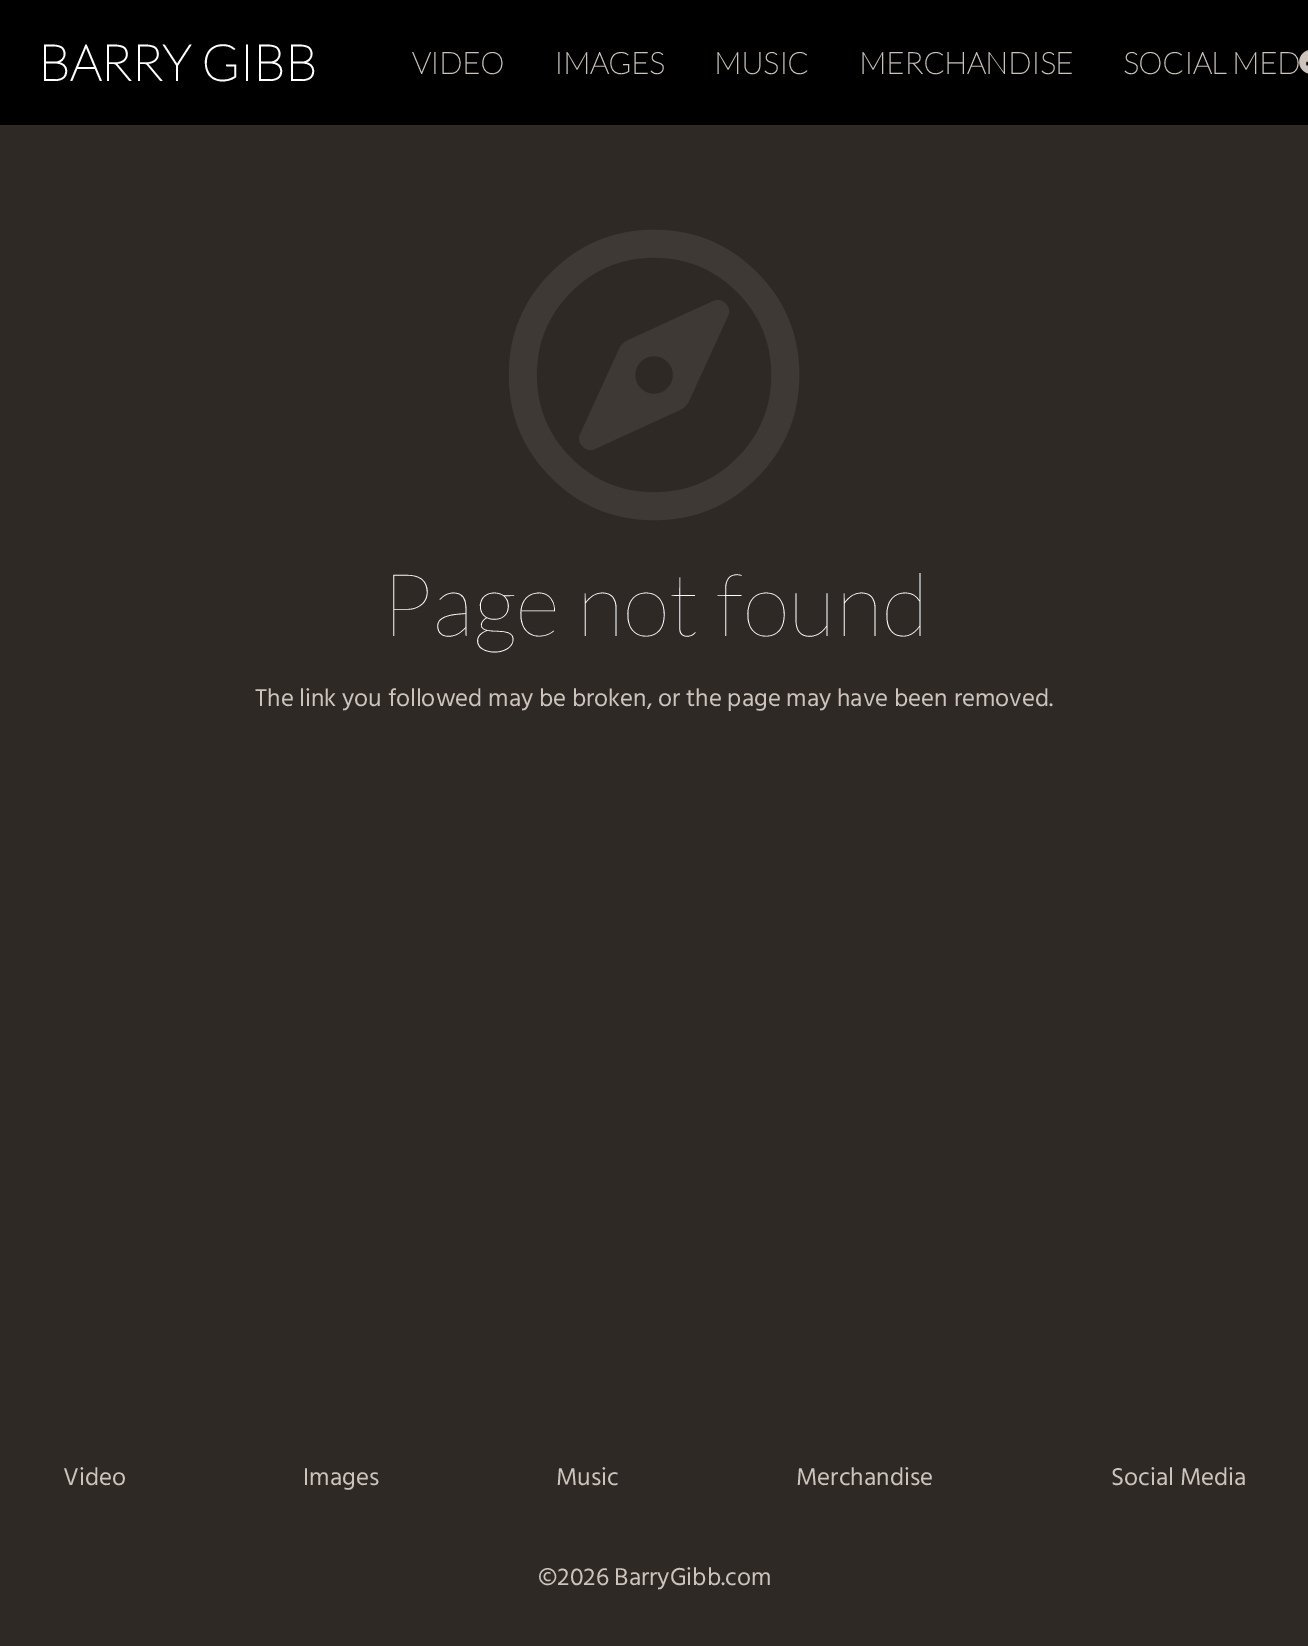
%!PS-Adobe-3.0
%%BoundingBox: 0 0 1308 1646
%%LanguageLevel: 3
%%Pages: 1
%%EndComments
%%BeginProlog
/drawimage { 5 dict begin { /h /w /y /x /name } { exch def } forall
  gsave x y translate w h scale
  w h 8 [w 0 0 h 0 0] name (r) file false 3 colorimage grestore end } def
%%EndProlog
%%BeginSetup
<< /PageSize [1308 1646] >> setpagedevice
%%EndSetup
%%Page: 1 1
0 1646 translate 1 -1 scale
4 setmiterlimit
0.18 0.161 0.145 setrgbcolor
0 0 1308 1646 rectfill
0 setgray
0 0 1308 125 rectfill
(images/1.raw) 1299 50 9 24 drawimage
(images/2.raw) 509 229 291 292 drawimage
/Lato-Bold [50 0 0 -50 0 0] selectfont
1 setgray
38 81 moveto (BARRY GIBB) show
/Lato-Bold [30 0 0 -30 0 0] selectfont
0.8 0.769 0.737 setrgbcolor
412 74 moveto (VIDEO) show
554 74 moveto (IMAGES) show
714 74 moveto (MUSIC) show
859 74 moveto (MERCHANDISE) show
1123 74 moveto (SOCIAL MED) show
/Lato-Thin [87.5 0 0 -87.5 0 0] selectfont
1 setgray
381 636 moveto (Page not found) show
/HindSiliguri-Regular [25 0 0 -25 0 0] selectfont
0.8 0.769 0.737 setrgbcolor
255 706 moveto (The link you followed may be broken, or the page may have been removed.) show
63 1485 moveto (Video) show
303 1485 moveto (Images) show
556 1485 moveto (Music) show
796 1485 moveto (Merchandise) show
1111 1485 moveto (Social Media) show
538 1585 moveto (©2026 BarryGibb.com) show
showpage
%%EOF
